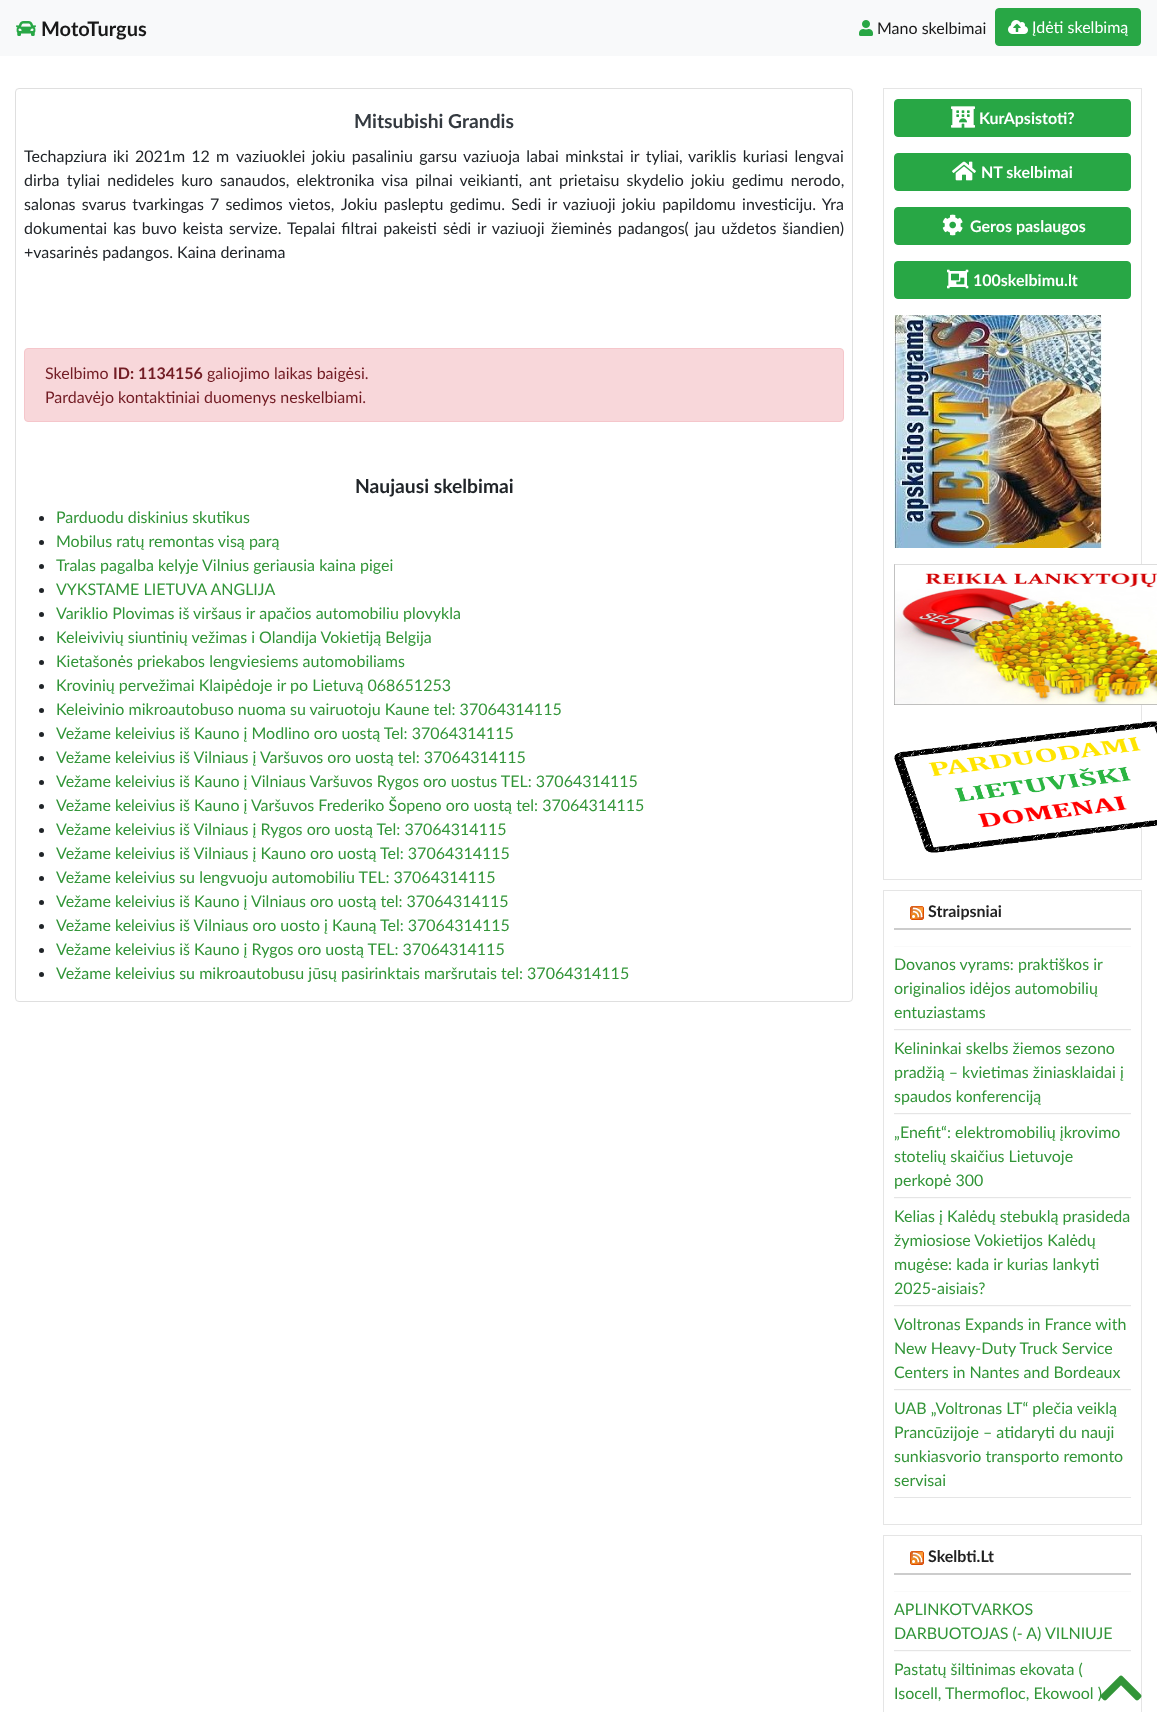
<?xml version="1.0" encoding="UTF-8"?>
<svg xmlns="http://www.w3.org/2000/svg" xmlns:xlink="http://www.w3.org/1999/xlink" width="1157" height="1712">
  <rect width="100%" height="100%" fill="#ffffff" />
  <rect width="1157" height="56" fill="#f8f9fa" />
  <image x="16" y="21" width="20" height="15" xlink:href="image1.png" />
  <image x="859" y="20" width="14" height="16" xlink:href="image2.png" />
  <rect x="995.5" y="8.5" width="145" height="37" rx="3.5" fill="#28a745" stroke="#28a745" />
  <image x="1008" y="20" width="20" height="14" xlink:href="image3.png" />
  <rect x="15.5" y="88.5" width="837" height="913" rx="3.5" fill="none" stroke="#dfdfdf" />
  <rect x="24.5" y="348.5" width="819" height="73" rx="3.5" fill="#f8d7da" stroke="#f5c6cb" />
  <circle cx="41.5" cy="518.5" r="2.5" fill="#212529" />
  <circle cx="41.5" cy="542.5" r="2.5" fill="#212529" />
  <circle cx="41.5" cy="566.5" r="2.5" fill="#212529" />
  <circle cx="41.5" cy="590.5" r="2.5" fill="#212529" />
  <circle cx="41.5" cy="614.5" r="2.5" fill="#212529" />
  <circle cx="41.5" cy="638.5" r="2.5" fill="#212529" />
  <circle cx="41.5" cy="662.5" r="2.5" fill="#212529" />
  <circle cx="41.5" cy="686.5" r="2.5" fill="#212529" />
  <circle cx="41.5" cy="710.5" r="2.5" fill="#212529" />
  <circle cx="41.5" cy="734.5" r="2.5" fill="#212529" />
  <circle cx="41.5" cy="758.5" r="2.5" fill="#212529" />
  <circle cx="41.5" cy="782.5" r="2.5" fill="#212529" />
  <circle cx="41.5" cy="806.5" r="2.5" fill="#212529" />
  <circle cx="41.5" cy="830.5" r="2.5" fill="#212529" />
  <circle cx="41.5" cy="854.5" r="2.5" fill="#212529" />
  <circle cx="41.5" cy="878.5" r="2.5" fill="#212529" />
  <circle cx="41.5" cy="902.5" r="2.5" fill="#212529" />
  <circle cx="41.5" cy="926.5" r="2.5" fill="#212529" />
  <circle cx="41.5" cy="950.5" r="2.5" fill="#212529" />
  <circle cx="41.5" cy="974.5" r="2.5" fill="#212529" />
  <rect x="883.5" y="88.5" width="258" height="791" fill="none" stroke="#e5e5e5" />
  <rect x="894.5" y="99.5" width="236" height="37" rx="3.5" fill="#28a745" stroke="#28a745" />
  <image x="951" y="106" width="24" height="22" xlink:href="image4.png" />
  <rect x="894.5" y="153.5" width="236" height="37" rx="3.5" fill="#28a745" stroke="#28a745" />
  <image x="952" y="161" width="24" height="20" xlink:href="image5.png" />
  <rect x="894.5" y="207.5" width="236" height="37" rx="3.5" fill="#28a745" stroke="#28a745" />
  <image x="942" y="214" width="21" height="22" xlink:href="image6.png" />
  <rect x="894.5" y="261.5" width="236" height="37" rx="3.5" fill="#28a745" stroke="#28a745" />
  <image x="947" y="269" width="22" height="20" xlink:href="image7.png" />
  <image x="894" y="315" width="208" height="233" xlink:href="image8.png" />
  <image x="894" y="564" width="263" height="141" xlink:href="image9.png" />
  <image x="894" y="721" width="263" height="132" xlink:href="image10.png" />
  <rect x="883.5" y="890.5" width="258" height="634" fill="none" stroke="#e5e5e5" />
  <rect x="894" y="928" width="237" height="2" fill="#cccccc" />
  <image x="910" y="906" width="14" height="14" xlink:href="image11.png" />
  <rect x="894" y="946" width="237" height="1" fill="#fafafa" />
  <rect x="894" y="1029" width="237" height="1" fill="#e5e5e5" />
  <rect x="894" y="1030" width="237" height="1" fill="#fafafa" />
  <rect x="894" y="1113" width="237" height="1" fill="#e5e5e5" />
  <rect x="894" y="1114" width="237" height="1" fill="#fafafa" />
  <rect x="894" y="1197" width="237" height="1" fill="#e5e5e5" />
  <rect x="894" y="1198" width="237" height="1" fill="#fafafa" />
  <rect x="894" y="1305" width="237" height="1" fill="#e5e5e5" />
  <rect x="894" y="1306" width="237" height="1" fill="#fafafa" />
  <rect x="894" y="1389" width="237" height="1" fill="#e5e5e5" />
  <rect x="894" y="1390" width="237" height="1" fill="#fafafa" />
  <rect x="894" y="1497" width="237" height="1" fill="#e5e5e5" />
  <rect x="883.5" y="1535.5" width="258" height="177" fill="none" stroke="#e5e5e5" />
  <rect x="894" y="1573" width="237" height="2" fill="#cccccc" />
  <image x="910" y="1551" width="14" height="14" xlink:href="image11.png" />
  <rect x="894" y="1591" width="237" height="1" fill="#fafafa" />
  <rect x="894" y="1650" width="237" height="1" fill="#e5e5e5" />
  <rect x="894" y="1651" width="237" height="1" fill="#fafafa" />
  <text x="41" y="36" style="font-family: Lato; font-size: 20px; font-weight: bold; fill: #191919">MotoTurgus</text>
  <text x="877" y="34" style="font-family: Lato; font-size: 16px; fill: #191919">Mano skelbimai</text>
  <text x="1032" y="33" style="font-family: Lato; font-size: 16px; fill: #ffffff">Įdėti skelbimą</text>
  <text x="354" y="128" style="font-family: Lato; font-size: 19.25px; font-weight: bold; fill: #343a40">Mitsubishi Grandis</text>
  <text x="24" y="162" word-spacing="2" style="font-family: Lato; font-size: 16px; fill: #212529">Techapziura iki 2021m 12 m</text>
  <text x="236" y="162" word-spacing="2.25" style="font-family: Lato; font-size: 16px; fill: #212529">vaziuoklei jokiu pasaliniu garsu vaziuoja labai minkstai ir tyliai,</text>
  <text x="688" y="162" word-spacing="2.25" style="font-family: Lato; font-size: 16px; fill: #212529">variklis kuriasi lengvai</text>
  <text x="24" y="186" word-spacing="3.1" style="font-family: Lato; font-size: 16px; fill: #212529">dirba tyliai nedideles kuro sanaudos, elektronika visa pilnai veikianti, ant prietaisu skydelio jokiu gedimu nerodo,</text>
  <text x="24" y="210" word-spacing="2" style="font-family: Lato; font-size: 16px; fill: #212529">salonas svarus tvarkingas 7 sedimos vietos,</text>
  <text x="341" y="210" word-spacing="2.25" style="font-family: Lato; font-size: 16px; fill: #212529">Jokiu pasleptu gedimu. Sedi ir vaziuoji jokiu papildomu investiciju. Yra</text>
  <text x="24" y="234" word-spacing="1.75" style="font-family: Lato; font-size: 16px; fill: #212529">dokumentai kas buvo keista servize. Tepalai filtrai pakeisti</text>
  <text x="443" y="234" word-spacing="1.75" style="font-family: Lato; font-size: 16px; fill: #212529">sėdi ir vaziuoji</text>
  <text x="551" y="234" word-spacing="1.75" style="font-family: Lato; font-size: 16px; fill: #212529">žieminės padangos( jau uždetos šiandien)</text>
  <text x="24" y="258" style="font-family: Lato; font-size: 16px; fill: #212529">+vasarinės padangos. Kaina derinama</text>
  <text x="45" y="379" style="font-family: Lato; font-size: 16px; fill: #721c24">Skelbimo</text>
  <text x="113" y="379" style="font-family: Lato; font-size: 16px; font-weight: bold; fill: #721c24">ID: 1134156</text>
  <text x="207" y="379" style="font-family: Lato; font-size: 16px; fill: #721c24">galiojimo laikas baigėsi.</text>
  <text x="45" y="403" style="font-family: Lato; font-size: 16px; fill: #721c24">Pardavėjo kontaktiniai duomenys neskelbiami.</text>
  <text x="355" y="493" style="font-family: Lato; font-size: 19.25px; font-weight: bold; fill: #212529">Naujausi skelbimai</text>
  <text x="56" y="523" style="font-family: Lato; font-size: 16px; fill: #329538">Parduodu diskinius skutikus</text>
  <text x="56" y="547" style="font-family: Lato; font-size: 16px; fill: #329538">Mobilus ratų remontas visą parą</text>
  <text x="56" y="571" style="font-family: Lato; font-size: 16px; fill: #329538">Tralas pagalba kelyje Vilnius geriausia kaina pigei</text>
  <text x="56" y="595" style="font-family: Lato; font-size: 16px; fill: #329538">VYKSTAME LIETUVA ANGLIJA</text>
  <text x="56" y="619" style="font-family: Lato; font-size: 16px; fill: #329538">Variklio Plovimas iš viršaus ir apačios automobiliu plovykla</text>
  <text x="56" y="643" style="font-family: Lato; font-size: 16px; fill: #329538">Keleivivių siuntinių vežimas i Olandija Vokietiją Belgija</text>
  <text x="56" y="667" style="font-family: Lato; font-size: 16px; fill: #329538">Kietašonės priekabos lengviesiems automobiliams</text>
  <text x="56" y="691" style="font-family: Lato; font-size: 16px; fill: #329538">Krovinių pervežimai Klaipėdoje ir po Lietuvą 068651253</text>
  <text x="56" y="715" style="font-family: Lato; font-size: 16px; fill: #329538">Keleivinio mikroautobuso nuoma su vairuotoju Kaune tel: 37064314115</text>
  <text x="56" y="739" style="font-family: Lato; font-size: 16px; fill: #329538">Vežame keleivius iš Kauno į Modlino oro uostą Tel: 37064314115</text>
  <text x="56" y="763" style="font-family: Lato; font-size: 16px; fill: #329538">Vežame keleivius iš Vilniaus į Varšuvos oro uostą tel: 37064314115</text>
  <text x="56" y="787" style="font-family: Lato; font-size: 16px; fill: #329538">Vežame keleivius iš Kauno į Vilniaus Varšuvos Rygos oro uostus TEL: 37064314115</text>
  <text x="56" y="811" style="font-family: Lato; font-size: 16px; fill: #329538">Vežame keleivius iš Kauno į Varšuvos Frederiko Šopeno oro uostą tel: 37064314115</text>
  <text x="56" y="835" style="font-family: Lato; font-size: 16px; fill: #329538">Vežame keleivius iš Vilniaus į Rygos oro uostą Tel: 37064314115</text>
  <text x="56" y="859" style="font-family: Lato; font-size: 16px; fill: #329538">Vežame keleivius iš Vilniaus į Kauno oro uostą Tel: 37064314115</text>
  <text x="56" y="883" style="font-family: Lato; font-size: 16px; fill: #329538">Vežame keleivius su lengvuoju automobiliu TEL: 37064314115</text>
  <text x="56" y="907" style="font-family: Lato; font-size: 16px; fill: #329538">Vežame keleivius iš Kauno į Vilniaus oro uostą tel: 37064314115</text>
  <text x="56" y="931" style="font-family: Lato; font-size: 16px; fill: #329538">Vežame keleivius iš Vilniaus oro uosto į Kauną Tel: 37064314115</text>
  <text x="56" y="955" style="font-family: Lato; font-size: 16px; fill: #329538">Vežame keleivius iš Kauno į Rygos oro uostą TEL: 37064314115</text>
  <text x="56" y="979" style="font-family: Lato; font-size: 16px; fill: #329538">Vežame keleivius su mikroautobusu jūsų pasirinktais maršrutais tel: 37064314115</text>
  <text x="979" y="124" style="font-family: Lato; font-size: 16px; font-weight: bold; fill: #ffffff">KurApsistoti?</text>
  <text x="981" y="178" style="font-family: Lato; font-size: 16px; font-weight: bold; fill: #ffffff">NT skelbimai</text>
  <text x="970" y="232" style="font-family: Lato; font-size: 16px; font-weight: bold; fill: #ffffff">Geros paslaugos</text>
  <text x="973" y="286" style="font-family: Lato; font-size: 16px; font-weight: bold; fill: #ffffff">100skelbimu.lt</text>
  <text x="928" y="917" style="font-family: Lato; font-size: 16px; font-weight: bold; fill: #222222">Straipsniai</text>
  <text x="894" y="970" style="font-family: Lato; font-size: 16px; fill: #329538">Dovanos vyrams: praktiškos ir</text>
  <text x="894" y="994" style="font-family: Lato; font-size: 16px; fill: #329538">originalios idėjos automobilių</text>
  <text x="894" y="1018" style="font-family: Lato; font-size: 16px; fill: #329538">entuziastams</text>
  <text x="894" y="1054" style="font-family: Lato; font-size: 16px; fill: #329538">Kelininkai skelbs žiemos sezono</text>
  <text x="894" y="1078" style="font-family: Lato; font-size: 16px; fill: #329538">pradžią – kvietimas žiniasklaidai į</text>
  <text x="894" y="1102" style="font-family: Lato; font-size: 16px; fill: #329538">spaudos konferenciją</text>
  <text x="894" y="1138" style="font-family: Lato; font-size: 16px; fill: #329538">„Enefit“: elektromobilių įkrovimo</text>
  <text x="894" y="1162" style="font-family: Lato; font-size: 16px; fill: #329538">stotelių skaičius Lietuvoje</text>
  <text x="894" y="1186" style="font-family: Lato; font-size: 16px; fill: #329538">perkopė 300</text>
  <text x="894" y="1222" style="font-family: Lato; font-size: 16px; fill: #329538">Kelias į Kalėdų stebuklą prasideda</text>
  <text x="894" y="1246" style="font-family: Lato; font-size: 16px; fill: #329538">žymiosiose Vokietijos Kalėdų</text>
  <text x="894" y="1270" style="font-family: Lato; font-size: 16px; fill: #329538">mugėse: kada ir kurias lankyti</text>
  <text x="894" y="1294" style="font-family: Lato; font-size: 16px; fill: #329538">2025-aisiais?</text>
  <text x="894" y="1330" style="font-family: Lato; font-size: 16px; fill: #329538">Voltronas Expands in France with</text>
  <text x="894" y="1354" style="font-family: Lato; font-size: 16px; fill: #329538">New Heavy-Duty Truck Service</text>
  <text x="894" y="1378" style="font-family: Lato; font-size: 16px; fill: #329538">Centers in Nantes and Bordeaux</text>
  <text x="894" y="1414" style="font-family: Lato; font-size: 16px; fill: #329538">UAB „Voltronas LT“ plečia veiklą</text>
  <text x="894" y="1438" style="font-family: Lato; font-size: 16px; fill: #329538">Prancūzijoje – atidaryti du nauji</text>
  <text x="894" y="1462" style="font-family: Lato; font-size: 16px; fill: #329538">sunkiasvorio transporto remonto</text>
  <text x="894" y="1486" style="font-family: Lato; font-size: 16px; fill: #329538">servisai</text>
  <text x="928" y="1562" style="font-family: Lato; font-size: 16px; font-weight: bold; fill: #222222">Skelbti.Lt</text>
  <text x="894" y="1615" style="font-family: Lato; font-size: 16px; fill: #329538">APLINKOTVARKOS</text>
  <text x="894" y="1639" style="font-family: Lato; font-size: 16px; fill: #329538">DARBUOTOJAS (- A) VILNIUJE</text>
  <text x="894" y="1675" style="font-family: Lato; font-size: 16px; fill: #329538">Pastatų šiltinimas ekovata (</text>
  <text x="894" y="1699" style="font-family: Lato; font-size: 16px; fill: #329538">Isocell, Thermofloc, Ekowool )</text>
  <image x="1100" y="1675" width="42" height="26" xlink:href="image12.png" />
</svg>
